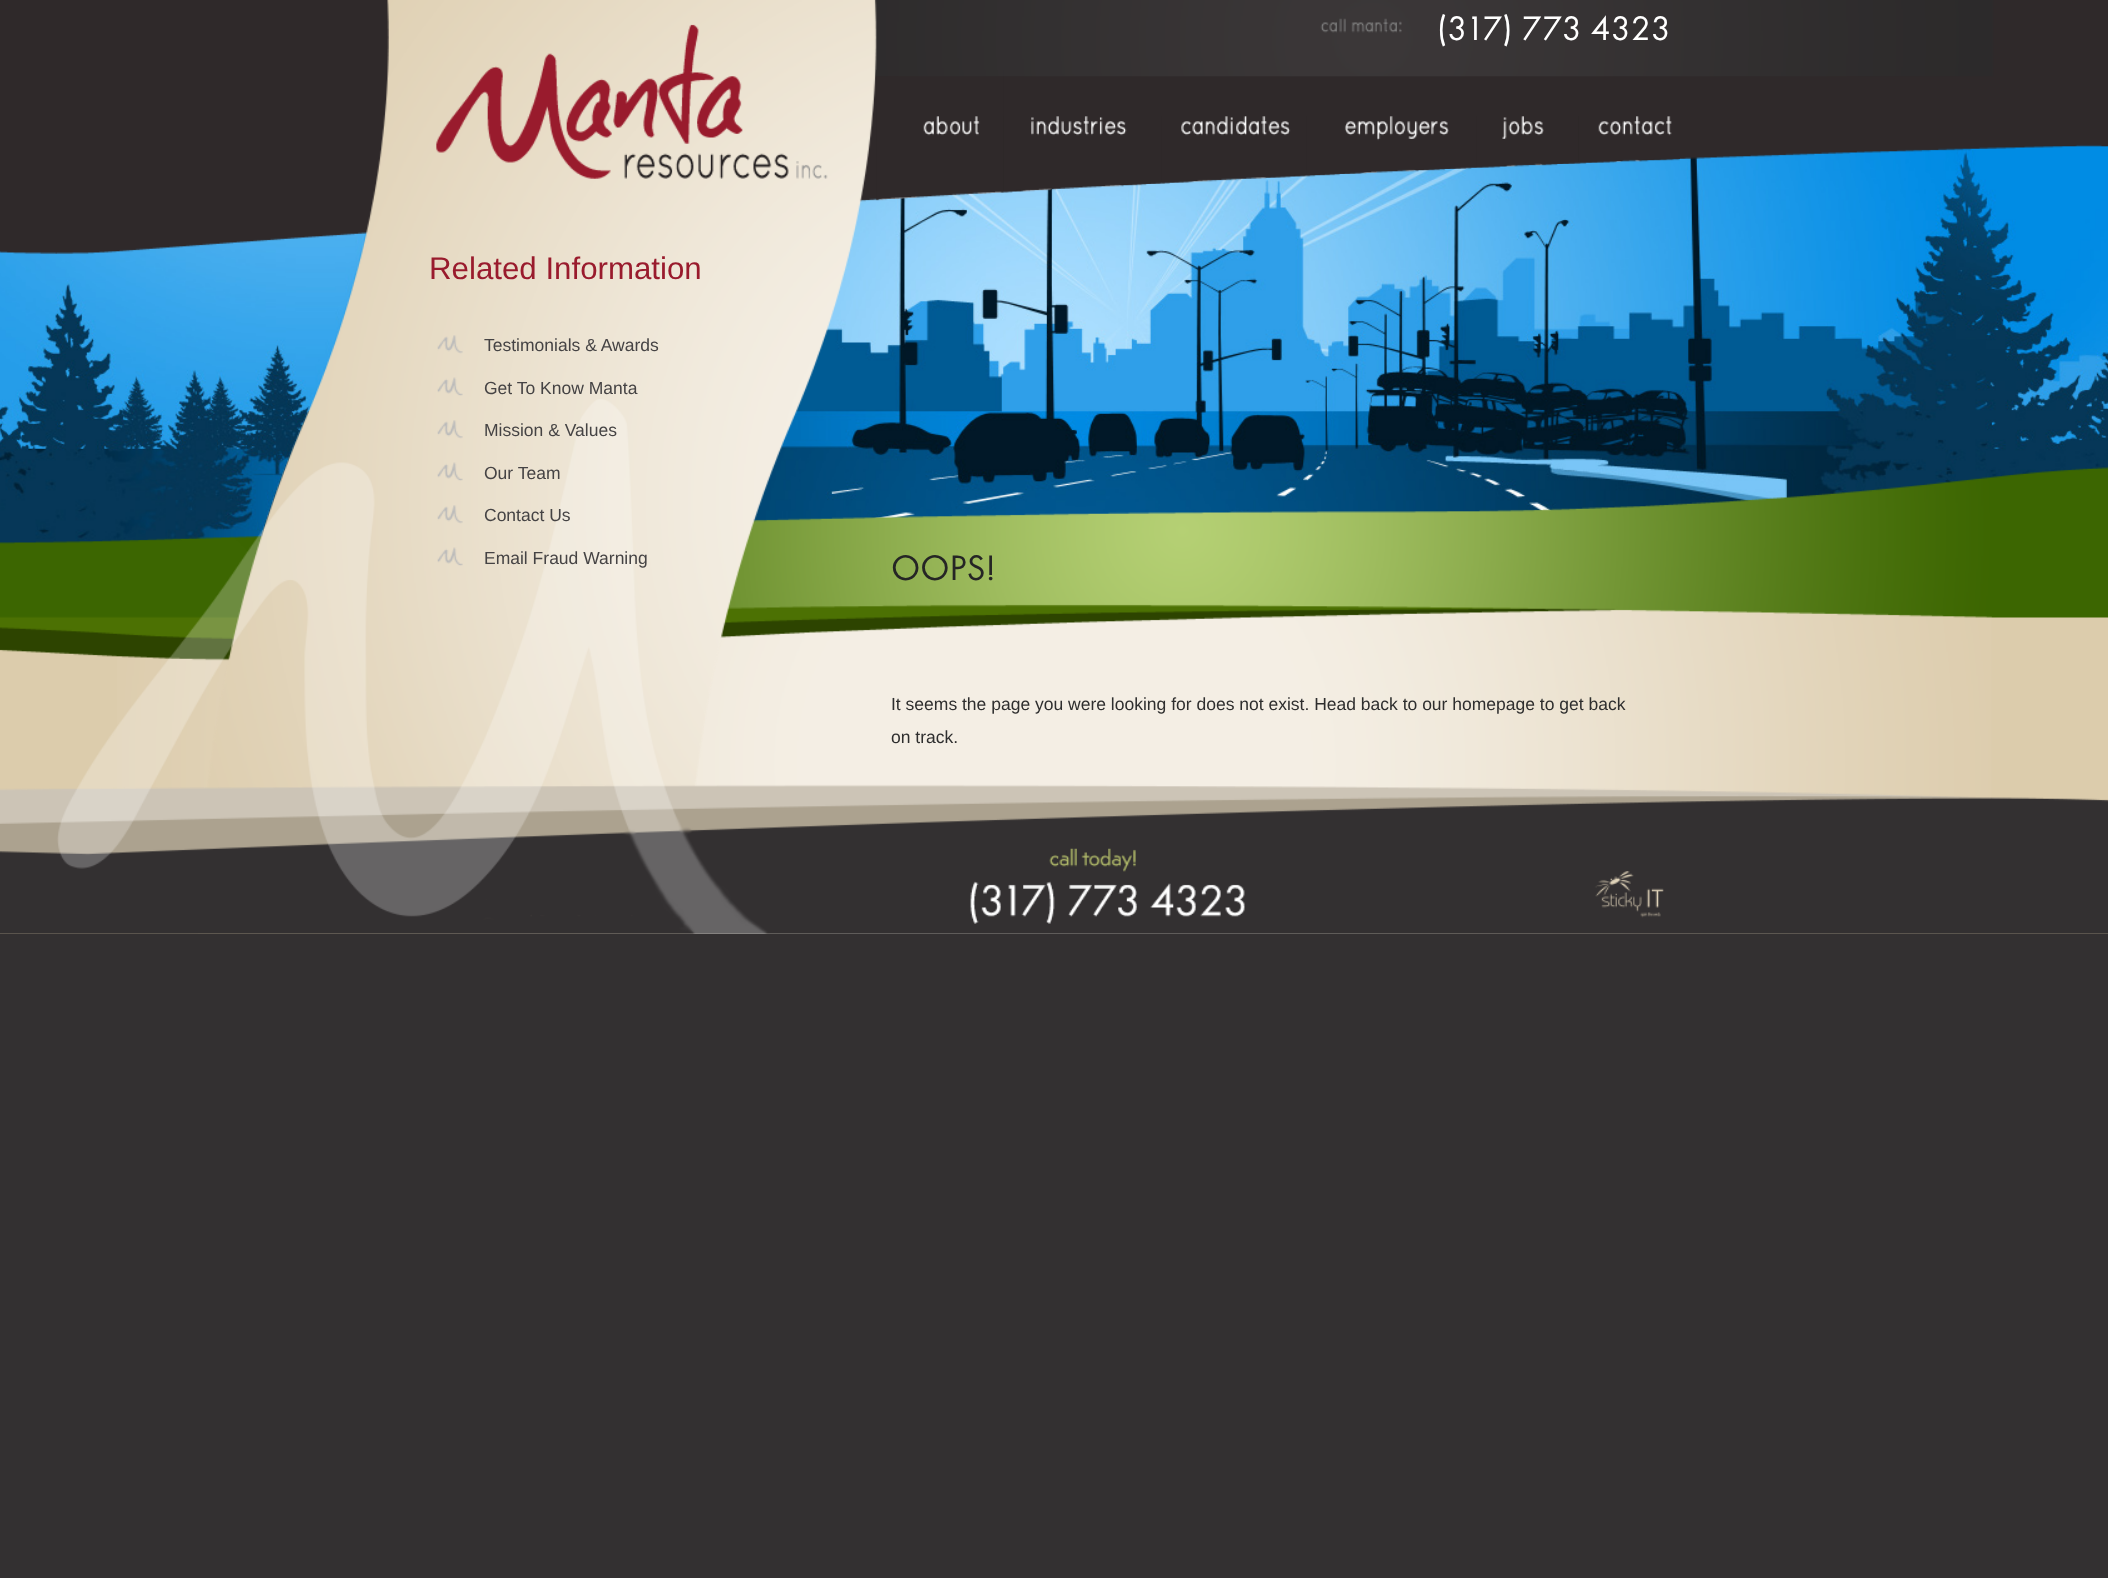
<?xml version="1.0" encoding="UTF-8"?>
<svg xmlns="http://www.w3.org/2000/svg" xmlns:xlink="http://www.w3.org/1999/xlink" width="2108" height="1578">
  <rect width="100%" height="100%" fill="#333031" />
  <image x="0" y="933" width="2108" height="1" xlink:href="image1.png" />
  <image x="198" y="933" width="488" height="1" xlink:href="image2.png" />
  <image x="0" y="144" width="2108" height="400" xlink:href="image3.png" />
  <image x="0" y="467" width="2108" height="467" xlink:href="image4.png" />
  <image x="0" y="0" width="2108" height="254" xlink:href="image5.png" />
  <image x="198" y="0" width="679" height="934" xlink:href="image6.png" />
  <image x="0" y="399" width="2108" height="535" xlink:href="image7.png" />
  <image x="436" y="24" width="392" height="155" xlink:href="image8.png" />
  <image x="876" y="70" width="128" height="131" xlink:href="image9.png" />
  <image x="1003" y="116" width="159" height="77" xlink:href="image10.png" />
  <image x="1161" y="116" width="146" height="68" xlink:href="image11.png" />
  <image x="1306" y="116" width="171" height="61" xlink:href="image12.png" />
  <image x="1476" y="116" width="103" height="52" xlink:href="image13.png" />
  <image x="1578" y="116" width="102" height="48" xlink:href="image14.png" />
  <image x="437" y="335" width="26" height="19" xlink:href="image15.png" />
  <image x="437" y="377" width="26" height="19" xlink:href="image16.png" />
  <image x="437" y="420" width="26" height="19" xlink:href="image17.png" />
  <image x="437" y="462" width="26" height="19" xlink:href="image18.png" />
  <image x="437" y="505" width="26" height="19" xlink:href="image19.png" />
  <image x="437" y="547" width="26" height="19" xlink:href="image20.png" />
  <text x="1437" y="40" style="font-family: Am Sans; font-size: 28.75px; fill: #ffffff">(317) 773 4323</text>
  <text x="429" y="279" style="font-family: Liberation Sans; font-size: 31.25px; fill: #991b2d">Related Information</text>
  <text x="484" y="351" style="font-family: Liberation Sans; font-size: 17.5px; fill: #454344">Testimonials &amp; Awards</text>
  <text x="484" y="394" style="font-family: Liberation Sans; font-size: 17.5px; fill: #454344">Get To Know Manta</text>
  <text x="484" y="436" style="font-family: Liberation Sans; font-size: 17.5px; fill: #454344">Mission &amp; Values</text>
  <text x="484" y="479" style="font-family: Liberation Sans; font-size: 17.5px; fill: #454344">Our Team</text>
  <text x="484" y="521" style="font-family: Liberation Sans; font-size: 17.5px; fill: #454344">Contact Us</text>
  <text x="484" y="564" style="font-family: Liberation Sans; font-size: 17.5px; fill: #454344">Email Fraud Warning</text>
  <text x="891" y="580" style="font-family: Am Sans; font-size: 30px; fill: #252525">OOPS!</text>
  <text x="891" y="710" style="font-family: Liberation Sans; font-size: 17.5px; fill: #2e2e2e">It seems the page you were looking for does not exist. Head back to our homepage to get back</text>
  <text x="891" y="743" style="font-family: Liberation Sans; font-size: 17.5px; fill: #2e2e2e">on track.</text>
</svg>
